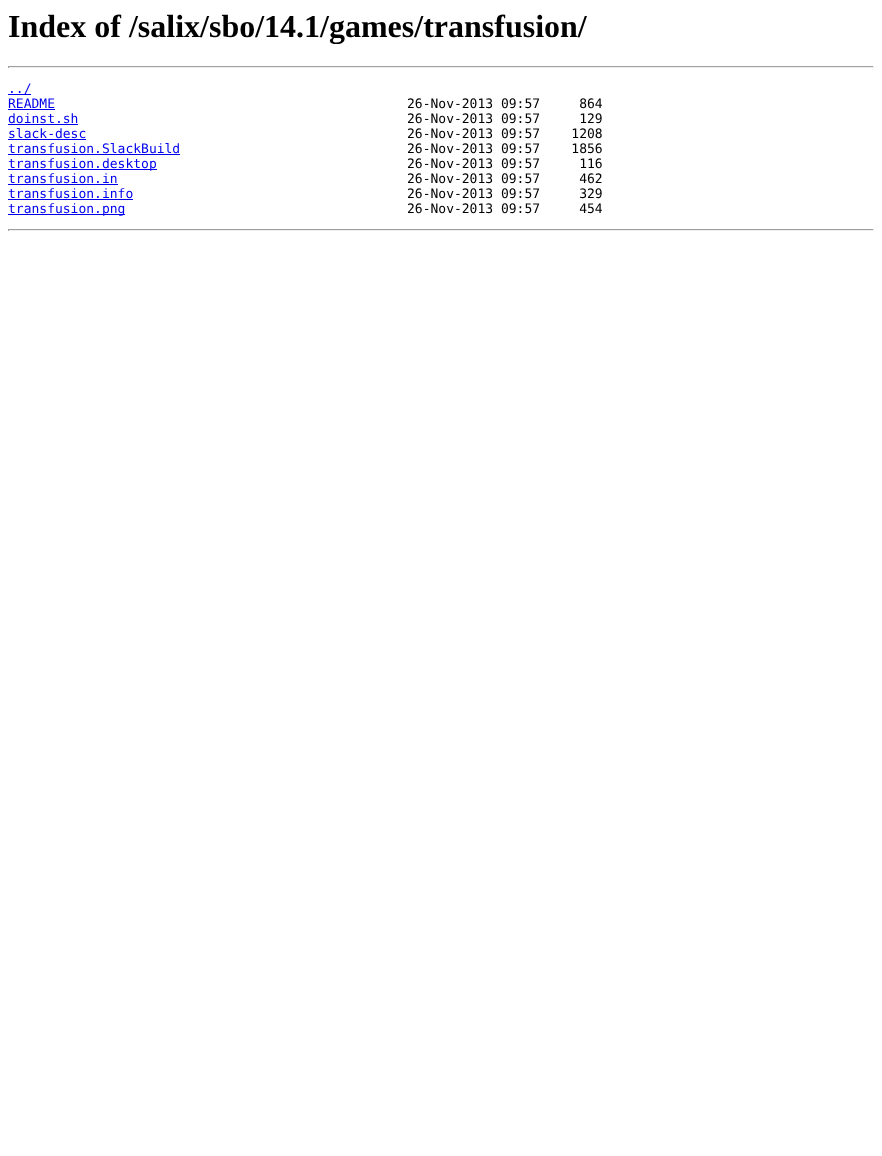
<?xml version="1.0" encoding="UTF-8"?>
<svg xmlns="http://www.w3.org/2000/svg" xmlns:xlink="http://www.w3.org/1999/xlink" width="882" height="1156">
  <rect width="100%" height="100%" fill="#ffffff" />
  <rect x="8" y="66" width="866" height="1" fill="#9f9f9f" />
  <rect x="873" y="66" width="1" height="2" fill="#eeeeee" />
  <rect x="8" y="67" width="866" height="1" fill="#eeeeee" />
  <rect x="8" y="66" width="1" height="2" fill="#9f9f9f" />
  <rect x="8" y="94" width="23" height="1" fill="#0000ee" />
  <rect x="8" y="109" width="47" height="1" fill="#0000ee" />
  <rect x="8" y="124" width="70" height="1" fill="#0000ee" />
  <rect x="8" y="139" width="78" height="1" fill="#0000ee" />
  <rect x="8" y="154" width="172" height="1" fill="#0000ee" />
  <rect x="8" y="169" width="149" height="1" fill="#0000ee" />
  <rect x="8" y="184" width="110" height="1" fill="#0000ee" />
  <rect x="8" y="199" width="125" height="1" fill="#0000ee" />
  <rect x="8" y="214" width="117" height="1" fill="#0000ee" />
  <rect x="8" y="229" width="866" height="1" fill="#9f9f9f" />
  <rect x="873" y="229" width="1" height="2" fill="#eeeeee" />
  <rect x="8" y="230" width="866" height="1" fill="#eeeeee" />
  <rect x="8" y="229" width="1" height="2" fill="#9f9f9f" />
  <text x="8" y="37" style="font-family: Liberation Serif; font-size: 32px; font-weight: bold; fill: #000000">Index of /salix/sbo/14.1/games/transfusion/</text>
  <text x="8" y="93" style="font-family: DejaVu Sans Mono; font-size: 13px; fill: #0000ee">../</text>
  <text x="8" y="108" style="font-family: DejaVu Sans Mono; font-size: 13px; fill: #0000ee">README</text>
  <text x="407" y="108" style="font-family: DejaVu Sans Mono; font-size: 13px; fill: #000000" xml:space="preserve">26-Nov-2013 09:57     864</text>
  <text x="8" y="123" style="font-family: DejaVu Sans Mono; font-size: 13px; fill: #0000ee">doinst.sh</text>
  <text x="407" y="123" style="font-family: DejaVu Sans Mono; font-size: 13px; fill: #000000" xml:space="preserve">26-Nov-2013 09:57     129</text>
  <text x="8" y="138" style="font-family: DejaVu Sans Mono; font-size: 13px; fill: #0000ee">slack-desc</text>
  <text x="407" y="138" style="font-family: DejaVu Sans Mono; font-size: 13px; fill: #000000" xml:space="preserve">26-Nov-2013 09:57    1208</text>
  <text x="8" y="153" style="font-family: DejaVu Sans Mono; font-size: 13px; fill: #0000ee">transfusion.SlackBuild</text>
  <text x="407" y="153" style="font-family: DejaVu Sans Mono; font-size: 13px; fill: #000000" xml:space="preserve">26-Nov-2013 09:57    1856</text>
  <text x="8" y="168" style="font-family: DejaVu Sans Mono; font-size: 13px; fill: #0000ee">transfusion.desktop</text>
  <text x="407" y="168" style="font-family: DejaVu Sans Mono; font-size: 13px; fill: #000000" xml:space="preserve">26-Nov-2013 09:57     116</text>
  <text x="8" y="183" style="font-family: DejaVu Sans Mono; font-size: 13px; fill: #0000ee">transfusion.in</text>
  <text x="407" y="183" style="font-family: DejaVu Sans Mono; font-size: 13px; fill: #000000" xml:space="preserve">26-Nov-2013 09:57     462</text>
  <text x="8" y="198" style="font-family: DejaVu Sans Mono; font-size: 13px; fill: #0000ee">transfusion.info</text>
  <text x="407" y="198" style="font-family: DejaVu Sans Mono; font-size: 13px; fill: #000000" xml:space="preserve">26-Nov-2013 09:57     329</text>
  <text x="8" y="213" style="font-family: DejaVu Sans Mono; font-size: 13px; fill: #0000ee">transfusion.png</text>
  <text x="407" y="213" style="font-family: DejaVu Sans Mono; font-size: 13px; fill: #000000" xml:space="preserve">26-Nov-2013 09:57     454</text>
</svg>
